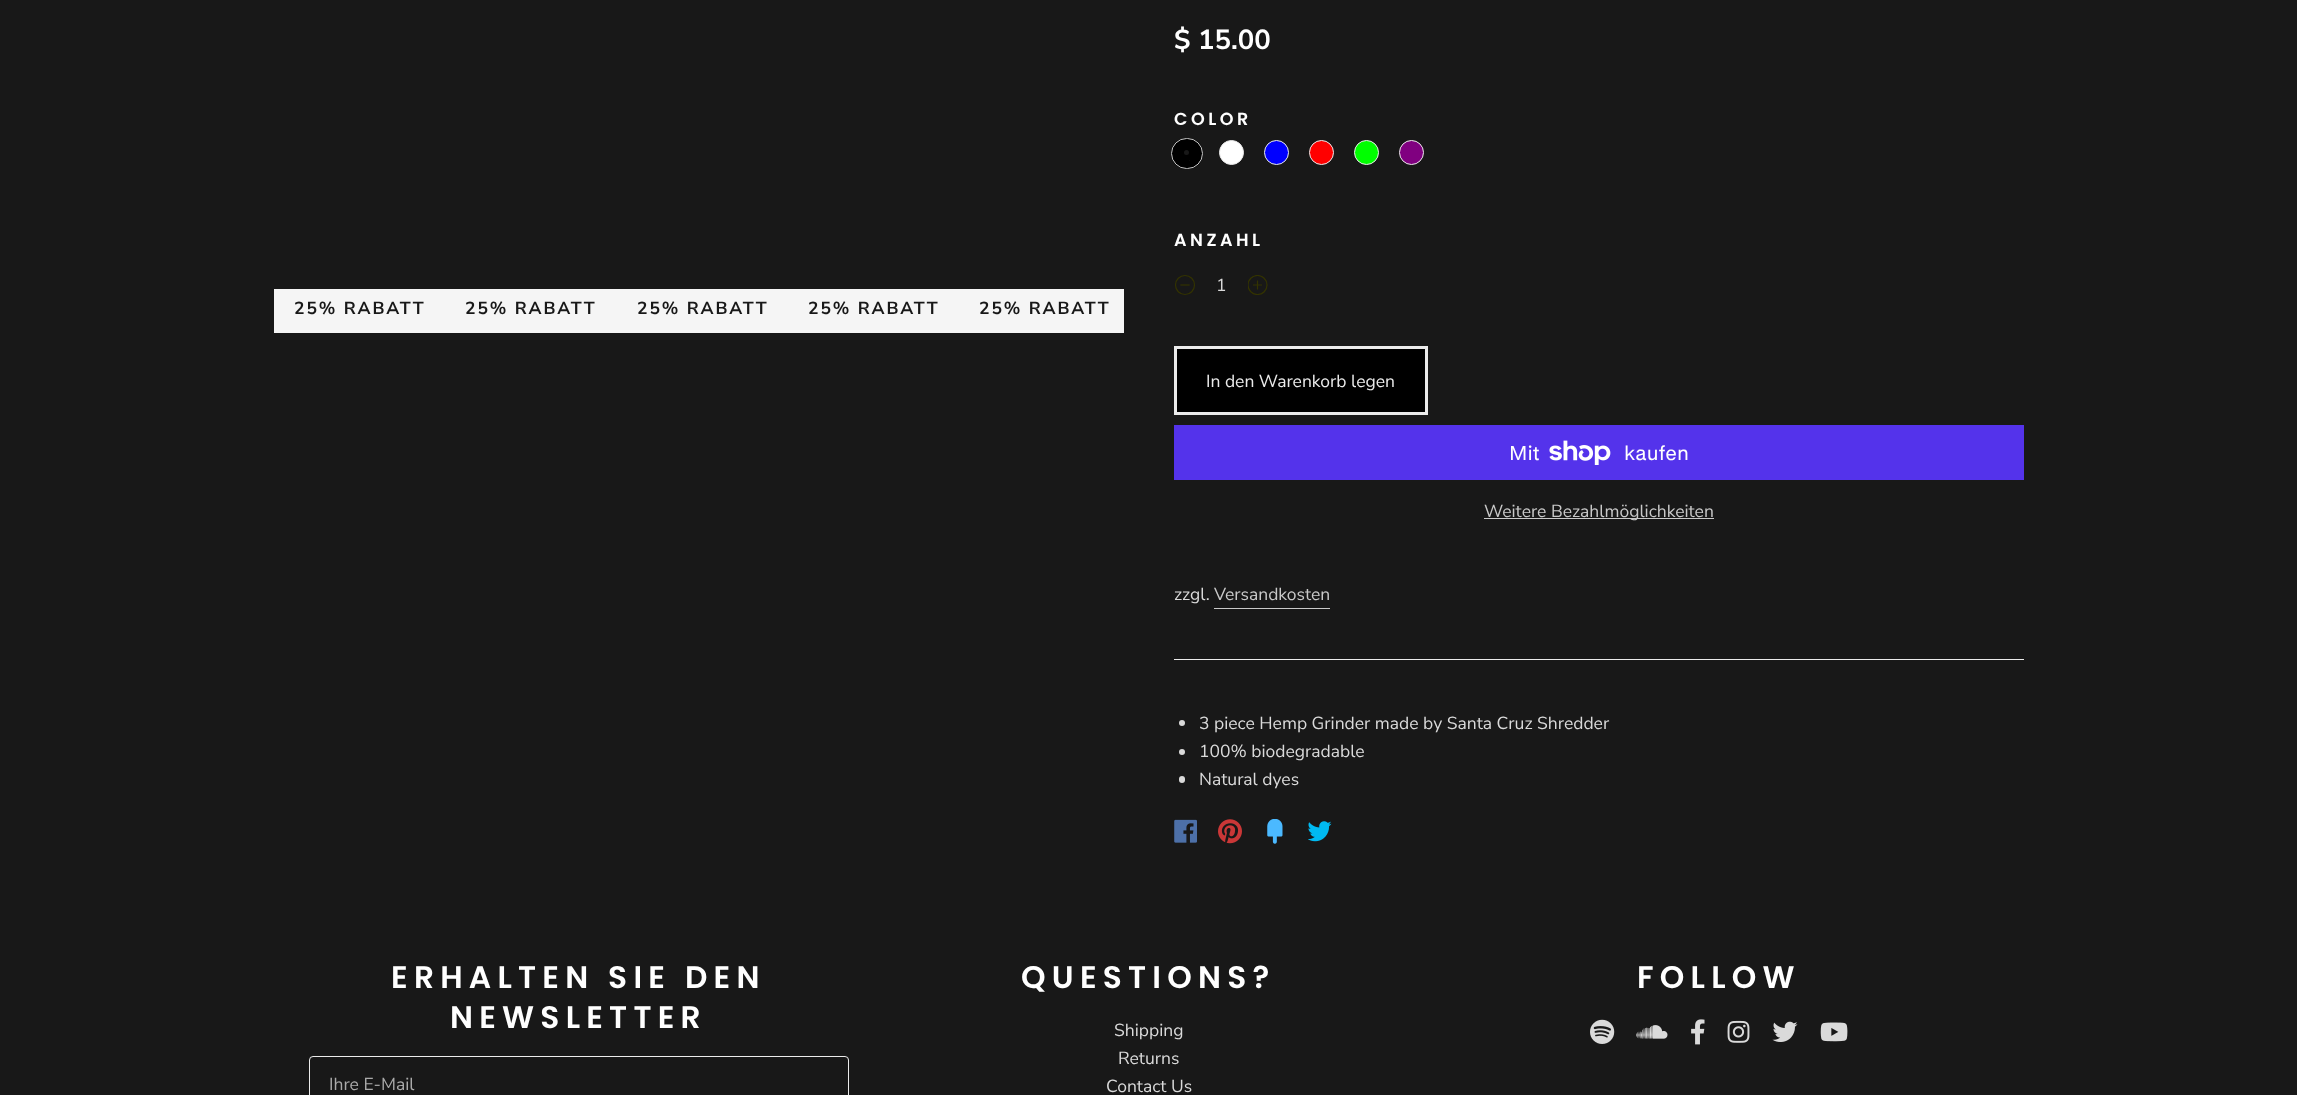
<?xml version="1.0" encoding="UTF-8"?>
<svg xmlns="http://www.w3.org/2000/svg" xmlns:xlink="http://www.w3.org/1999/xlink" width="2297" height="1095">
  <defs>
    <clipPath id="clip1"><rect x="1248" y="275" width="20" height="20" /></clipPath>
  </defs>
  <rect width="100%" height="100%" fill="#181818" />
  <rect x="274" y="289" width="850" height="44" fill="#f5f5f5" />
  <rect x="1174" y="659" width="850" height="1" fill="#ebebeb" />
  <rect x="1171" y="138" width="32" height="31" rx="15.5" fill="#000000" />
  <rect x="1189" y="160" width="1" height="1" fill="#070707" />
  <rect x="1171.5" y="138.5" width="31" height="30" rx="15" fill="none" stroke="#c9c9c9" />
  <circle cx="1186.5" cy="152.5" r="2.5" fill="#181818" />
  <circle cx="1231.5" cy="152.5" r="12" fill="#ffffff" stroke="#ebebeb" />
  <circle cx="1276.5" cy="152.5" r="12" fill="#0000ff" stroke="#ebebeb" />
  <circle cx="1321.5" cy="152.5" r="12" fill="#ff0000" stroke="#ebebeb" />
  <circle cx="1366.5" cy="152.5" r="12" fill="#00ff00" stroke="#ebebeb" />
  <circle cx="1411.5" cy="152.5" r="12" fill="#800080" stroke="#ebebeb" />
  <circle cx="1185" cy="285" r="9.5" fill="none" stroke="#333300" stroke-width="1.2" />
  <path d="M 1181 285 h 8" fill="none" stroke="#333300" stroke-width="1.2" stroke-linecap="square" />
  <g clip-path="url(#clip1)">
    <circle cx="1257.5" cy="285" r="9.5" fill="none" stroke="#333300" stroke-width="1.2" />
  </g>
  <path d="M 1253.5 285 h 8 m -4 -4 v 8" fill="none" stroke="#333300" stroke-width="1.2" stroke-linecap="square" />
  <rect x="1175.5" y="347.5" width="251" height="66" fill="#000000" stroke="#ebebeb" stroke-width="3" />
  <rect x="1174" y="425" width="850" height="55" fill="#5433eb" />
  <image x="1549" y="440" width="62" height="25" xlink:href="image1.png" />
  <rect x="1484" y="518" width="230" height="1" fill="#c9c9c9" />
  <rect x="1214" y="608" width="116" height="1" fill="#c9c9c9" />
  <circle cx="1182" cy="723" r="3" fill="#dadada" />
  <circle cx="1182" cy="752" r="3" fill="#dadada" />
  <rect x="1179" y="776" width="6" height="7" rx="3" fill="#dadada" />
  <image x="1174" y="819" width="23" height="24" xlink:href="image2.png" />
  <image x="1218" y="819" width="24" height="25" xlink:href="image3.png" />
  <image x="1267" y="819" width="16" height="25" xlink:href="image4.png" />
  <image x="1308" y="821" width="24" height="21" xlink:href="image5.png" />
  <rect x="309.5" y="1056.5" width="539" height="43" rx="3.5" fill="none" stroke="#ebebeb" />
  <image x="1590" y="1019" width="25" height="25" xlink:href="image6.png" />
  <image x="1636" y="1025" width="32" height="14" xlink:href="image7.png" />
  <image x="1691" y="1019" width="14" height="26" xlink:href="image8.png" />
  <image x="1727" y="1020" width="23" height="23" xlink:href="image9.png" />
  <image x="1772" y="1021" width="26" height="21" xlink:href="image10.png" />
  <image x="1820" y="1022" width="28" height="20" xlink:href="image11.png" />
  <text x="294" y="314" style="font-family: Nunito Sans; font-size: 17.5px; font-weight: bold; letter-spacing: 1.9px; fill: #181818">25% RABATT</text>
  <text x="465" y="314" style="font-family: Nunito Sans; font-size: 17.5px; font-weight: bold; letter-spacing: 1.9px; fill: #181818">25% RABATT</text>
  <text x="637" y="314" style="font-family: Nunito Sans; font-size: 17.5px; font-weight: bold; letter-spacing: 1.9px; fill: #181818">25% RABATT</text>
  <text x="808" y="314" style="font-family: Nunito Sans; font-size: 17.5px; font-weight: bold; letter-spacing: 1.9px; fill: #181818">25% RABATT</text>
  <text x="979" y="314" style="font-family: Nunito Sans; font-size: 17.5px; font-weight: bold; letter-spacing: 1.9px; fill: #181818">25% RABATT</text>
  <text x="1174" y="49" style="font-family: Nunito Sans; font-size: 27.5px; font-weight: bold; fill: #ffffff">$ 15.00</text>
  <text x="1174" y="125" style="font-family: Poppins; font-size: 17.5px; font-weight: 600; letter-spacing: 3.5px; fill: #ffffff">COLOR</text>
  <text x="1174" y="246" style="font-family: Poppins; font-size: 17.5px; font-weight: 600; letter-spacing: 3.5px; fill: #ffffff">ANZAHL</text>
  <text x="1216" y="291" style="font-family: Nunito Sans; font-size: 17.5px; fill: #dadada">1</text>
  <text x="1206" y="387" style="font-family: Nunito Sans; font-size: 17.5px; fill: #ebebeb">In den Warenkorb legen</text>
  <text x="1509" y="460" style="font-family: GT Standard; font-size: 20px; fill: #ffffff">Mit</text>
  <text x="1624" y="460" style="font-family: GT Standard; font-size: 20px; fill: #ffffff">kaufen</text>
  <text x="1484" y="517" style="font-family: Nunito Sans; font-size: 17.5px; fill: #c9c9c9">Weitere Bezahlmöglichkeiten</text>
  <text x="1174" y="600" style="font-family: Nunito Sans; font-size: 17.5px; fill: #dadada">zzgl.</text>
  <text x="1214" y="600" style="font-family: Nunito Sans; font-size: 17.5px; fill: #c9c9c9">Versandkosten</text>
  <text x="1199" y="729" style="font-family: Nunito Sans; font-size: 17.5px; fill: #dadada">3 piece Hemp Grinder made by Santa Cruz Shredder</text>
  <text x="1199" y="757" style="font-family: Nunito Sans; font-size: 17.5px; fill: #dadada">100% biodegradable</text>
  <text x="1199" y="785" style="font-family: Nunito Sans; font-size: 17.5px; fill: #dadada">Natural dyes</text>
  <text x="391" y="988" style="font-family: Poppins; font-size: 31.25px; font-weight: 600; letter-spacing: 6.25px; fill: #ffffff">ERHALTEN SIE DEN</text>
  <text x="450" y="1028" style="font-family: Poppins; font-size: 31.25px; font-weight: 600; letter-spacing: 6.25px; fill: #ffffff">NEWSLETTER</text>
  <text x="329" y="1090" style="font-family: Nunito Sans; font-size: 17.5px; fill: #aaaaaa">Ihre E-Mail</text>
  <text x="1021" y="988" style="font-family: Poppins; font-size: 31.25px; font-weight: 600; letter-spacing: 6.25px; fill: #ffffff">QUESTIONS?</text>
  <text x="1114" y="1036" style="font-family: Nunito Sans; font-size: 17.5px; fill: #dadada">Shipping</text>
  <text x="1118" y="1064" style="font-family: Nunito Sans; font-size: 17.5px; fill: #dadada">Returns</text>
  <text x="1106" y="1092" style="font-family: Nunito Sans; font-size: 17.5px; fill: #dadada">Contact Us</text>
  <text x="1637" y="988" style="font-family: Poppins; font-size: 31.25px; font-weight: 600; letter-spacing: 6.25px; fill: #ffffff">FOLLOW</text>
</svg>
